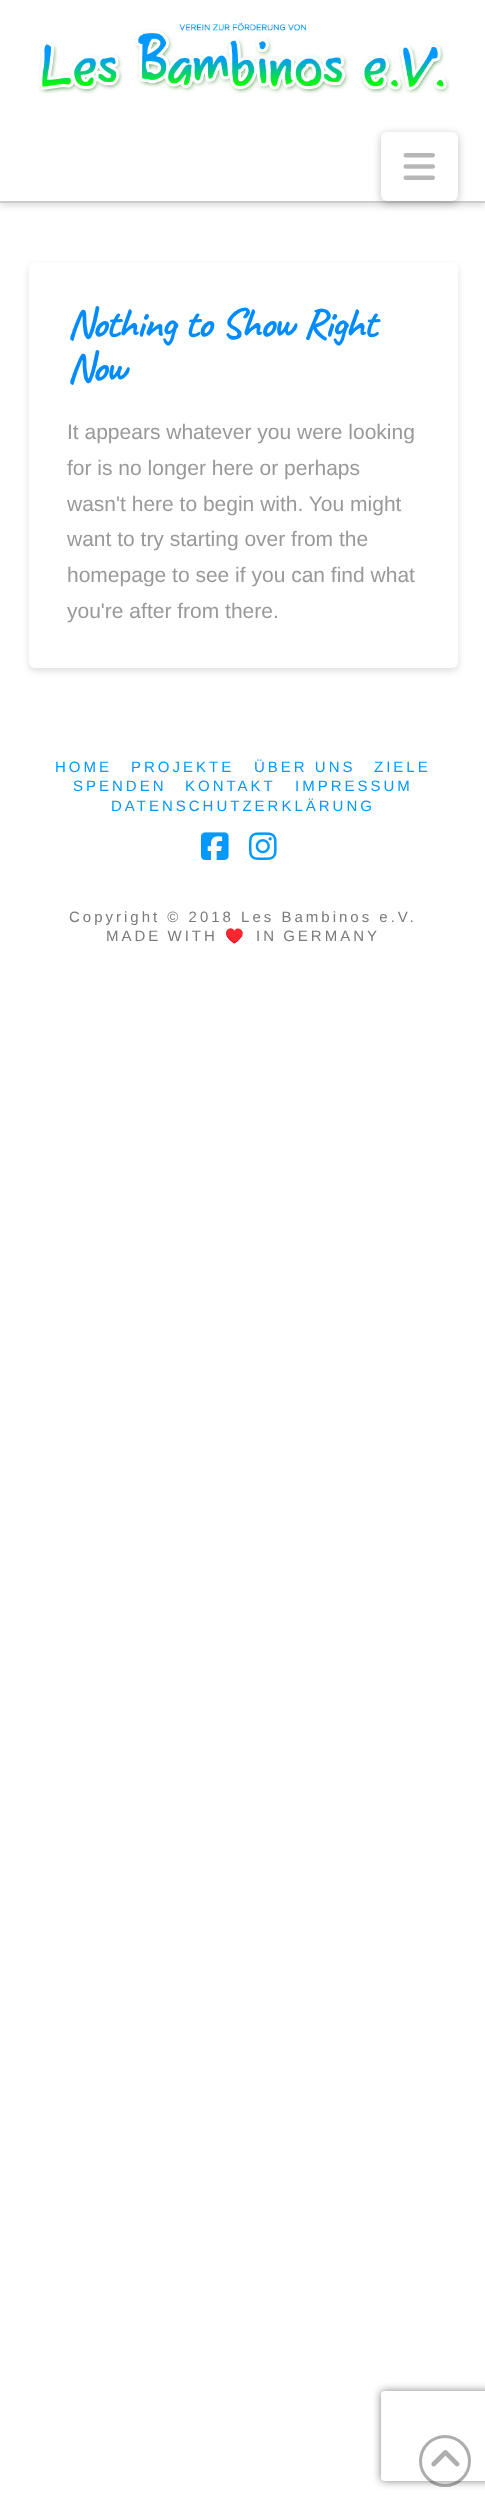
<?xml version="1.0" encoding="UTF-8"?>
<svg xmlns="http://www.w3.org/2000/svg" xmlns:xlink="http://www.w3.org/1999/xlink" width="485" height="2501">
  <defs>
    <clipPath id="clip1"><path d="M 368 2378 h 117 v 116 h -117 z m 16 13 h 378 c 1.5 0 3 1.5 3 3 v 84 c 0 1.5 -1.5 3 -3 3 h -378 c -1.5 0 -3 -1.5 -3 -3 v -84 c 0 -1.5 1.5 -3 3 -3 z" clip-rule="evenodd" /></clipPath>
  </defs>
  <rect width="100%" height="100%" fill="#ffffff" />
  <rect y="3" width="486" height="203" fill="#000000" fill-opacity="0.13" filter="blur(3.5px)" />
  <rect width="485" height="201" fill="#ffffff" />
  <rect y="201" width="485" height="2" fill="#cccccc" />
  <image x="38" y="22" width="412" height="72" xlink:href="image1.png" />
  <rect x="381" y="134" width="77" height="69" rx="6" fill="#000000" fill-opacity="0.25" filter="blur(4px)" />
  <rect x="381" y="132" width="77" height="69" rx="6" fill="#ffffff" />
  <image x="403" y="153" width="32" height="27" xlink:href="image2.png" />
  <rect x="29" y="266" width="429" height="405" rx="6" fill="#000000" fill-opacity="0.13" filter="blur(3.5px)" />
  <rect x="29" y="263" width="429" height="405" rx="6" fill="#ffffff" />
  <image x="201" y="832" width="28" height="28" xlink:href="image3.png" />
  <image x="249" y="832" width="28" height="28" xlink:href="image4.png" />
  <g clip-path="url(#clip1)">
    <rect x="381" y="2391" width="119" height="90" rx="3" fill="#808080" filter="blur(4px)" />
  </g>
  <circle cx="445" cy="2461" r="24.5" fill="none" stroke="#272727" stroke-opacity="0.38" stroke-width="3" />
  <image x="431" y="2450" width="29" height="17" xlink:href="image5.png" />
  <text x="67" y="337" word-spacing="1.5" style="font-family: Caveat; font-size: 42px; font-weight: bold; letter-spacing: -1.5px; fill: #008cff">Nothing to Show Right</text>
  <text x="67" y="381" style="font-family: Caveat; font-size: 42px; font-weight: bold; letter-spacing: -1.5px; fill: #008cff">Now</text>
  <text x="67" y="439" style="font-family: Liberation Sans; font-size: 21px; fill: #999999">It appears whatever you were looking</text>
  <text x="67" y="475" style="font-family: Liberation Sans; font-size: 21px; fill: #999999">for is no longer here or perhaps</text>
  <text x="67" y="511" style="font-family: Liberation Sans; font-size: 21px; fill: #999999">wasn't here to begin with. You might</text>
  <text x="67" y="546" style="font-family: Liberation Sans; font-size: 21px; fill: #999999">want to try starting over from the</text>
  <text x="67" y="582" style="font-family: Liberation Sans; font-size: 21px; fill: #999999">homepage to see if you can find what</text>
  <text x="67" y="618" style="font-family: Liberation Sans; font-size: 21px; fill: #999999">you're after from there.</text>
  <text x="55" y="772" style="font-family: Liberation Sans; font-size: 15px; letter-spacing: 3px; fill: #0099ff">HOME</text>
  <text x="131" y="772" style="font-family: Liberation Sans; font-size: 15px; letter-spacing: 3px; fill: #0099ff">PROJEKTE</text>
  <text x="254" y="772" style="font-family: Liberation Sans; font-size: 15px; letter-spacing: 3px; fill: #0099ff">ÜBER UNS</text>
  <text x="374" y="772" style="font-family: Liberation Sans; font-size: 15px; letter-spacing: 3px; fill: #0099ff">ZIELE</text>
  <text x="73" y="791" style="font-family: Liberation Sans; font-size: 15px; letter-spacing: 3px; fill: #0099ff">SPENDEN</text>
  <text x="185" y="791" style="font-family: Liberation Sans; font-size: 15px; letter-spacing: 3px; fill: #0099ff">KONTAKT</text>
  <text x="295" y="791" style="font-family: Liberation Sans; font-size: 15px; letter-spacing: 3px; fill: #0099ff">IMPRESSUM</text>
  <text x="111" y="811" style="font-family: Liberation Sans; font-size: 15px; letter-spacing: 3px; fill: #0099ff">DATENSCHUTZERKLÄRUNG</text>
  <text x="69" y="922" style="font-family: Liberation Sans; font-size: 15px; letter-spacing: 3px; fill: #7a7a7a">Copyright © 2018 Les Bambinos e.V.</text>
  <text x="106" y="941" word-spacing="-1" style="font-family: Liberation Sans; font-size: 15px; letter-spacing: 3px; fill: #7a7a7a">MADE WITH</text>
  <text x="225" y="941" style="font-family: Noto Color Emoji; font-size: 15px; letter-spacing: 3px; fill: #7a7a7a">♥️</text>
  <text x="256" y="941" word-spacing="-1" style="font-family: Liberation Sans; font-size: 15px; letter-spacing: 3px; fill: #7a7a7a">IN GERMANY</text>
</svg>
